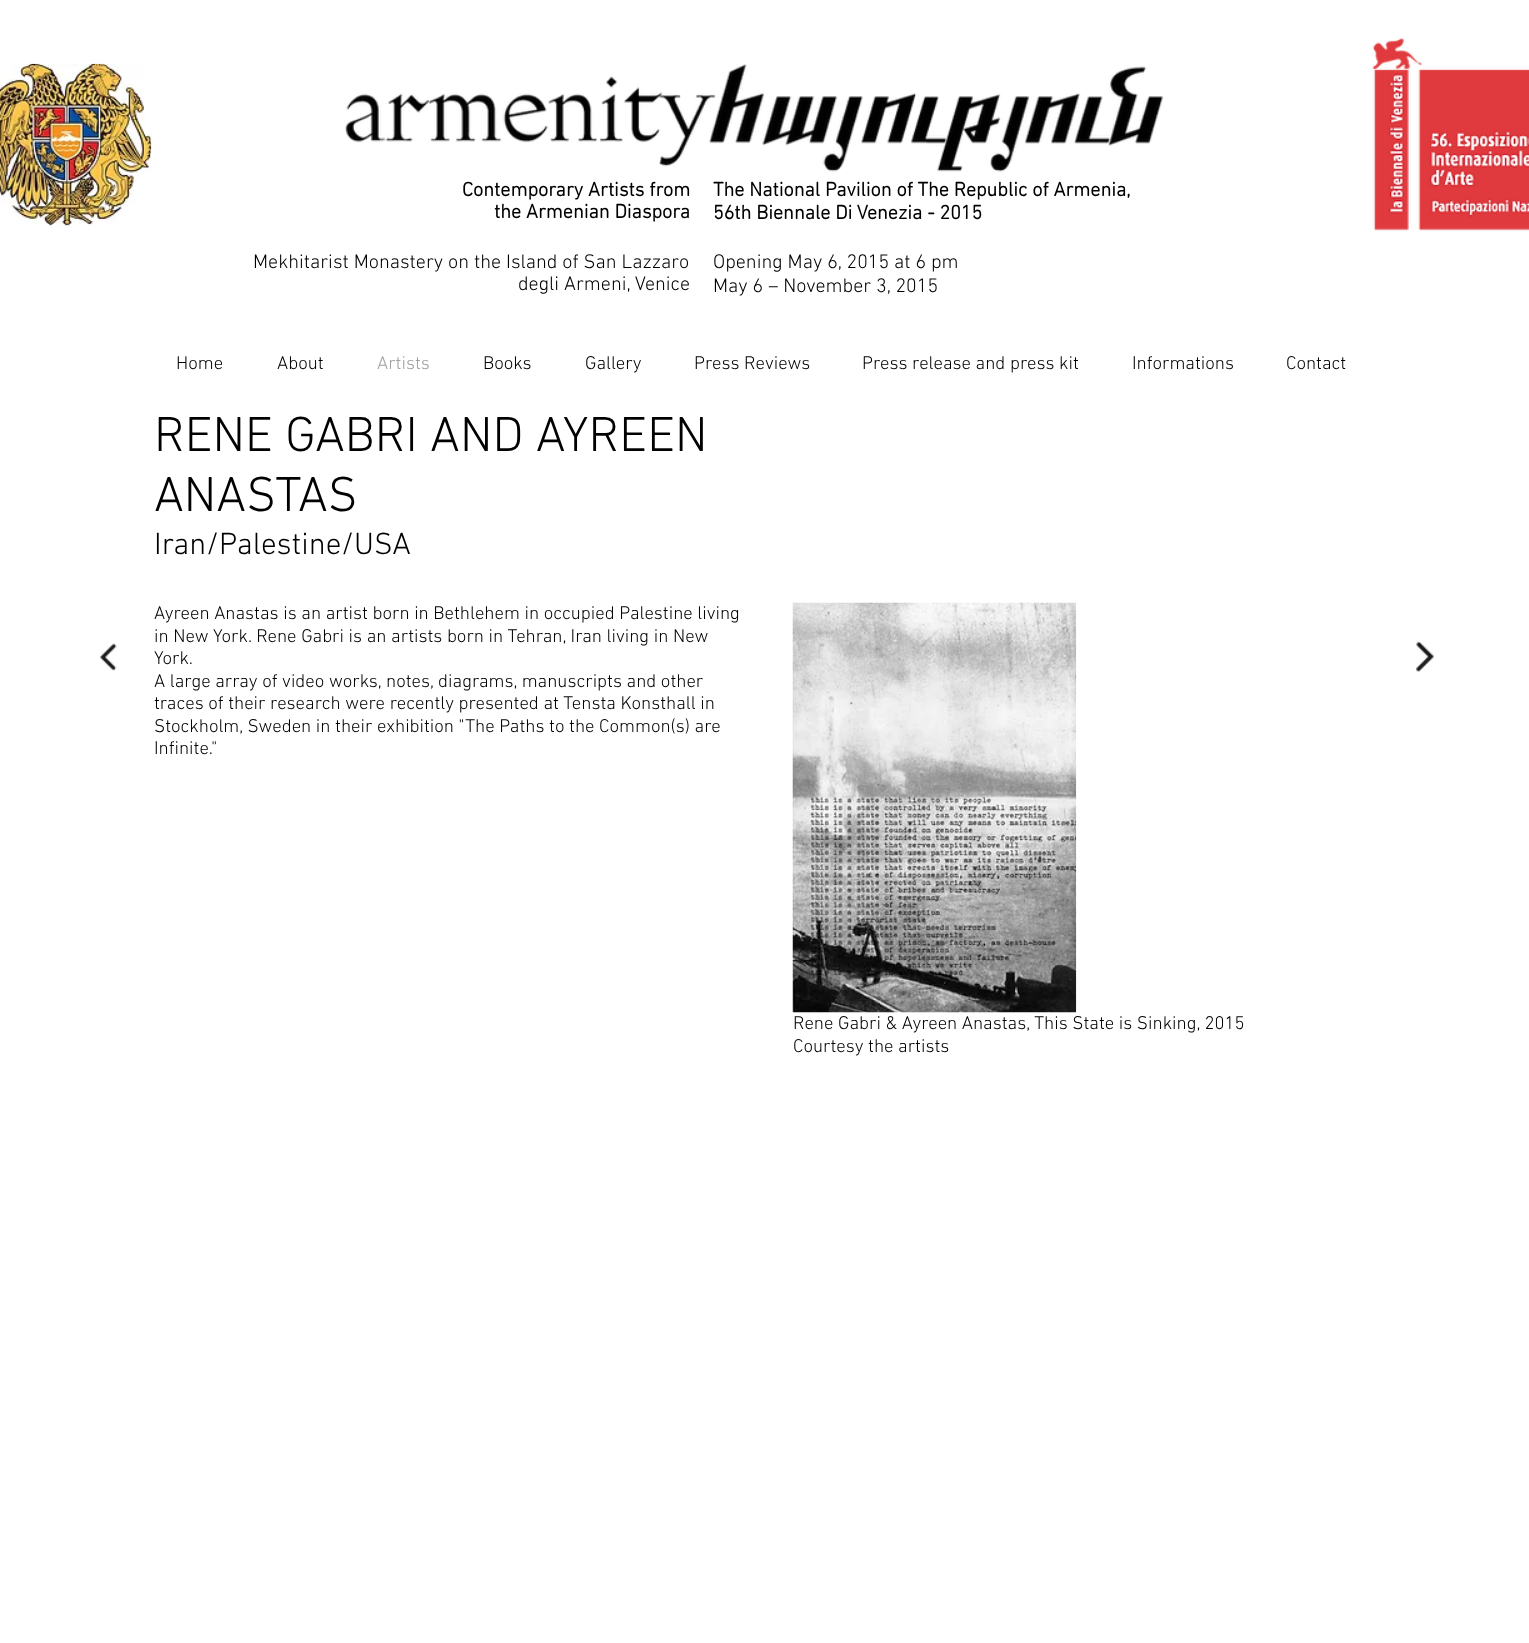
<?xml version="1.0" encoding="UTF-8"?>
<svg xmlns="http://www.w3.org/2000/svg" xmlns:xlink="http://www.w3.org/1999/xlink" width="1529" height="1643">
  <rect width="100%" height="100%" fill="#ffffff" />
  <image x="0" y="63" width="152" height="166" xlink:href="image1.png" />
  <image x="345" y="64" width="819" height="108" xlink:href="image2.png" />
  <image x="1372" y="38" width="157" height="193" xlink:href="image3.png" />
  <image x="99" y="643" width="18" height="28" xlink:href="image4.png" />
  <image x="792" y="602" width="285" height="411" xlink:href="image5.png" />
  <image x="1416" y="641" width="18" height="31" xlink:href="image6.png" />
  <text x="462" y="196" style="font-family: 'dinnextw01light'; font-size: 20px; font-weight: bold; fill: #000000">Contemporary Artists from</text>
  <text x="494" y="218" style="font-family: 'dinnextw01light'; font-size: 20px; font-weight: bold; fill: #000000">the Armenian Diaspora</text>
  <text x="253" y="268" style="font-family: 'dinnextw01light'; font-size: 20px; font-weight: 300; fill: #000000">Mekhitarist Monastery on the Island of San Lazzaro</text>
  <text x="518" y="290" style="font-family: 'dinnextw01light'; font-size: 20px; font-weight: 300; fill: #000000">degli Armeni, Venice</text>
  <text x="713" y="196" style="font-family: 'dinnextw01light'; font-size: 20px; font-weight: bold; fill: #000000">The National Pavilion of The Republic of Armenia,</text>
  <text x="713" y="219" style="font-family: 'dinnextw01light'; font-size: 20px; font-weight: bold; fill: #000000">56th Biennale Di Venezia - 2015</text>
  <text x="713" y="268" style="font-family: 'dinnextw01light'; font-size: 20px; font-weight: 300; fill: #000000">Opening May 6, 2015 at 6 pm</text>
  <text x="713" y="292" style="font-family: 'dinnextw01light'; font-size: 20px; font-weight: 300; fill: #000000">May 6 – November 3, 2015</text>
  <text x="176" y="369" style="font-family: 'dinnextw01light'; font-size: 18.75px; font-weight: 300; fill: #000000">Home</text>
  <text x="277" y="369" style="font-family: 'dinnextw01light'; font-size: 18.75px; font-weight: 300; fill: #000000">About</text>
  <text x="377" y="369" style="font-family: 'dinnextw01light'; font-size: 18.75px; font-weight: 300; fill: #a0a09f">Artists</text>
  <text x="483" y="369" style="font-family: 'dinnextw01light'; font-size: 18.75px; font-weight: 300; fill: #000000">Books</text>
  <text x="585" y="369" style="font-family: 'dinnextw01light'; font-size: 18.75px; font-weight: 300; fill: #000000">Gallery</text>
  <text x="694" y="369" style="font-family: 'dinnextw01light'; font-size: 18.75px; font-weight: 300; fill: #000000">Press Reviews</text>
  <text x="862" y="369" style="font-family: 'dinnextw01light'; font-size: 18.75px; font-weight: 300; fill: #000000">Press release and press kit</text>
  <text x="1132" y="369" style="font-family: 'dinnextw01light'; font-size: 18.75px; font-weight: 300; fill: #000000">Informations</text>
  <text x="1286" y="369" style="font-family: 'dinnextw01light'; font-size: 18.75px; font-weight: 300; fill: #000000">Contact</text>
  <text x="154" y="451" style="font-family: 'dinnextw01light'; font-size: 50px; font-weight: 300; fill: #000000">RENE GABRI AND AYREEN</text>
  <text x="154" y="511" style="font-family: 'dinnextw01light'; font-size: 50px; font-weight: 300; fill: #000000">ANASTAS</text>
  <text x="154" y="554" style="font-family: 'dinnextw01light'; font-size: 31.25px; font-weight: 300; fill: #000000">Iran/Palestine/USA</text>
  <text x="154" y="619" style="font-family: 'dinnextw01light'; font-size: 18.75px; font-weight: 300; fill: #000000">Ayreen Anastas is an artist born in Bethlehem in occupied Palestine living</text>
  <text x="154" y="642" style="font-family: 'dinnextw01light'; font-size: 18.75px; font-weight: 300; fill: #000000">in New York. Rene Gabri is an artists born in Tehran, Iran living in New</text>
  <text x="154" y="664" style="font-family: 'dinnextw01light'; font-size: 18.75px; font-weight: 300; fill: #000000">York.</text>
  <text x="154" y="687" style="font-family: 'dinnextw01light'; font-size: 18.75px; font-weight: 300; fill: #000000">A large array of video works, notes, diagrams, manuscripts and other</text>
  <text x="154" y="709" style="font-family: 'dinnextw01light'; font-size: 18.75px; font-weight: 300; fill: #000000">traces of their research were recently presented at Tensta Konsthall in</text>
  <text x="154" y="732" style="font-family: 'dinnextw01light'; font-size: 18.75px; font-weight: 300; fill: #000000">Stockholm, Sweden in their exhibition "The Paths to the Common(s) are</text>
  <text x="154" y="754" style="font-family: 'dinnextw01light'; font-size: 18.75px; font-weight: 300; fill: #000000">Infinite."</text>
  <text x="793" y="1029" style="font-family: 'dinnextw01light'; font-size: 18.75px; font-weight: 300; fill: #000000">Rene Gabri &amp; Ayreen Anastas, This State is Sinking, 2015</text>
  <text x="793" y="1052" style="font-family: 'dinnextw01light'; font-size: 18.75px; font-weight: 300; fill: #000000">Courtesy the artists</text>
</svg>
